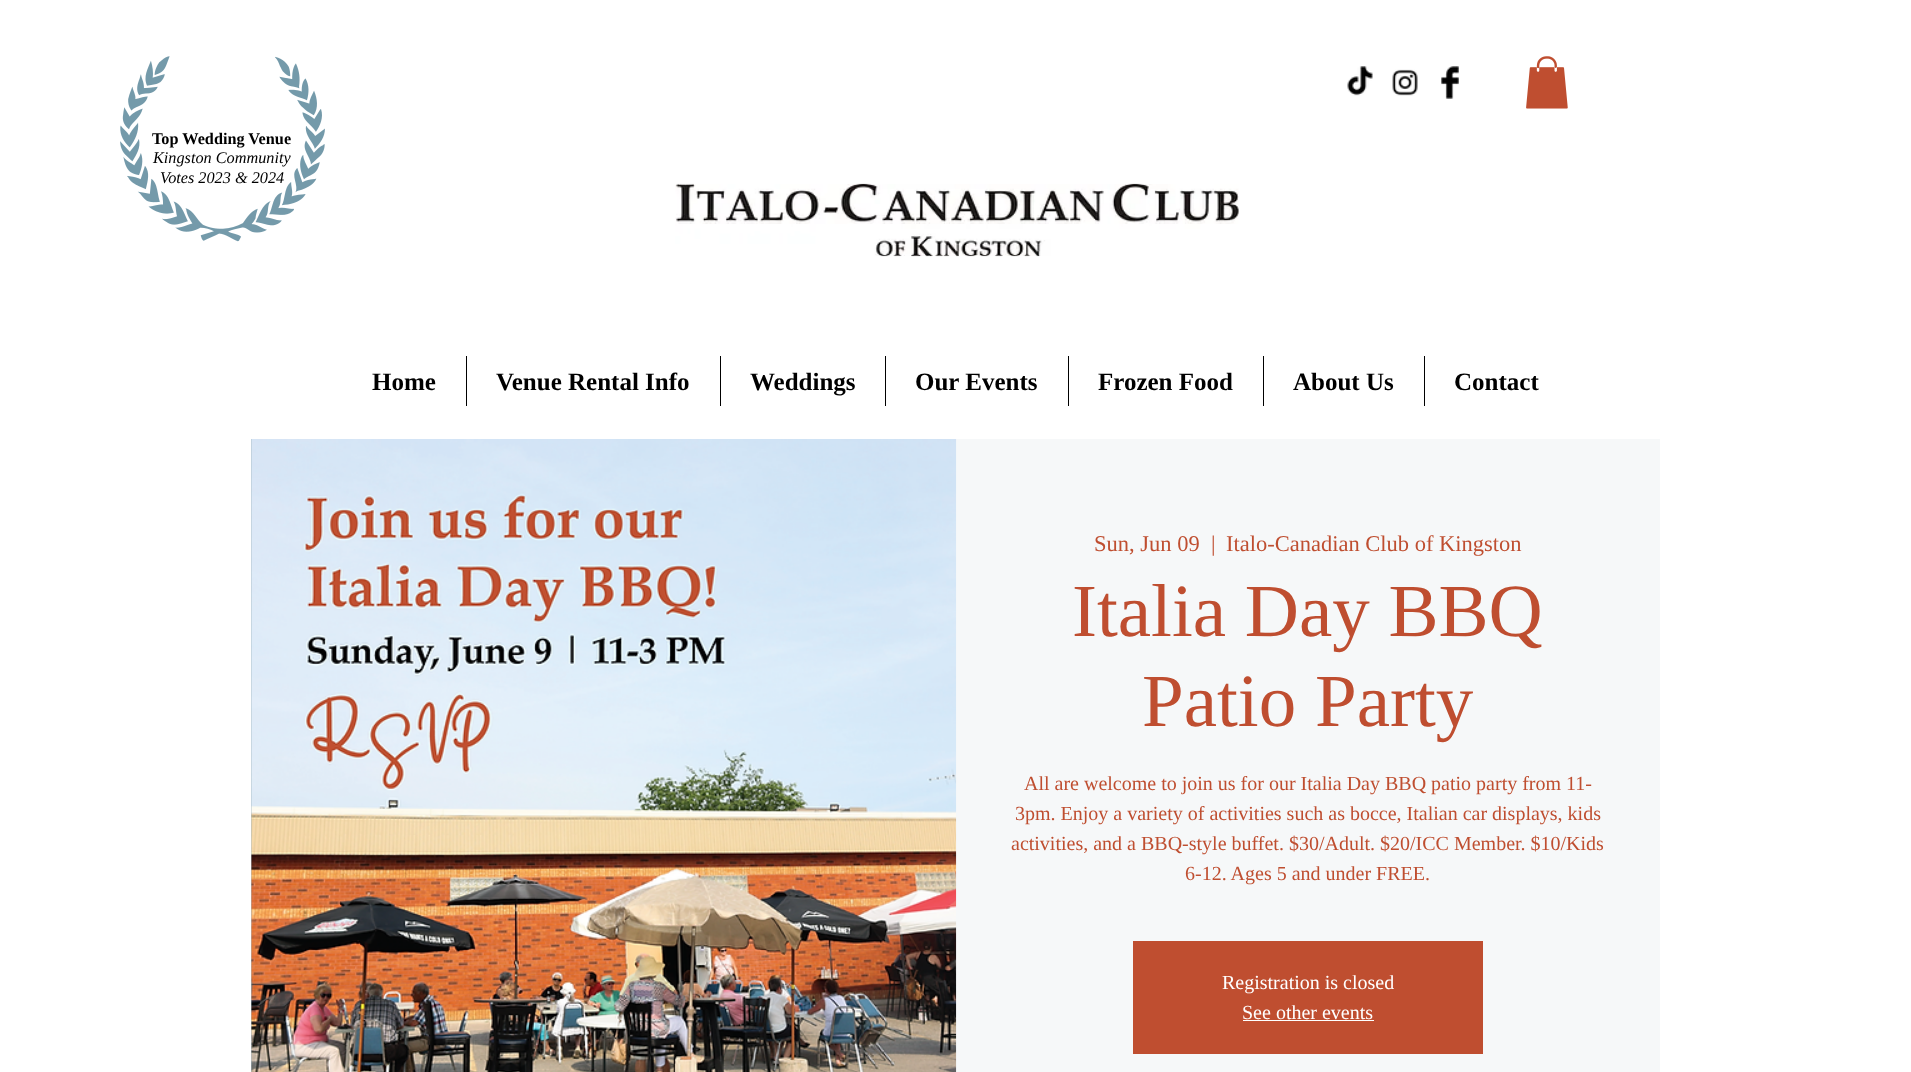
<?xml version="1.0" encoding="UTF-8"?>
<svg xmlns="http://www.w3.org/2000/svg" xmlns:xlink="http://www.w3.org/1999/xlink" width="1911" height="1072">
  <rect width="100%" height="100%" fill="#ffffff" />
  <image x="120" y="56" width="205" height="186" xlink:href="image1.png" />
  <image x="1347" y="66" width="26" height="30" xlink:href="image2.png" />
  <image x="1392" y="69" width="26" height="27" xlink:href="image3.png" />
  <image x="1441" y="66" width="18" height="33" xlink:href="image4.png" />
  <image x="1526" y="56" width="42" height="53" xlink:href="image5.png" />
  <image x="675" y="183" width="564" height="74" xlink:href="image6.png" />
  <rect x="466" y="356" width="1" height="50" fill="#000000" />
  <rect x="720" y="356" width="1" height="50" fill="#000000" />
  <rect x="885" y="356" width="1" height="50" fill="#000000" />
  <rect x="1068" y="356" width="1" height="50" fill="#000000" />
  <rect x="1263" y="356" width="1" height="50" fill="#000000" />
  <rect x="1424" y="356" width="1" height="50" fill="#000000" />
  <rect x="251" y="439" width="1" height="633" fill="#a7bdc6" />
  <image x="251" y="439" width="706" height="633" xlink:href="image7.png" />
  <rect x="956" y="439" width="704" height="633" fill="#a7bdc6" fill-opacity="0.1" />
  <rect x="1133" y="941" width="350" height="113" fill="#bf4e30" />
  <rect x="1243" y="1020" width="131" height="1" fill="#ffffff" />
  <text x="152" y="144" style="font-family: Liberation Serif; font-size: 16.25px; font-weight: bold; fill: #000000">Top Wedding Venue</text>
  <text x="153" y="163" style="font-family: Liberation Serif; font-size: 16.25px; font-style: italic; fill: #000000">Kingston Community</text>
  <text x="160" y="183" style="font-family: Liberation Serif; font-size: 16.25px; font-style: italic; fill: #000000">Votes 2023 &amp; 2024</text>
  <text x="372" y="390" style="font-family: Liberation Serif; font-size: 25px; font-weight: bold; fill: #000000">Home</text>
  <text x="496" y="390" style="font-family: Liberation Serif; font-size: 25px; font-weight: bold; fill: #000000">Venue Rental Info</text>
  <text x="750" y="390" style="font-family: Liberation Serif; font-size: 25px; font-weight: bold; fill: #000000">Weddings</text>
  <text x="915" y="390" style="font-family: Liberation Serif; font-size: 25px; font-weight: bold; fill: #000000">Our Events</text>
  <text x="1098" y="390" style="font-family: Liberation Serif; font-size: 25px; font-weight: bold; fill: #000000">Frozen Food</text>
  <text x="1293" y="390" style="font-family: Liberation Serif; font-size: 25px; font-weight: bold; fill: #000000">About Us</text>
  <text x="1454" y="390" style="font-family: Liberation Serif; font-size: 25px; font-weight: bold; fill: #000000">Contact</text>
  <text x="1094" y="551" style="font-family: Liberation Serif; font-size: 22.5px; fill: #bf4e30">Sun, Jun 09</text>
  <text x="1211" y="551" style="font-family: Liberation Serif; font-size: 22.5px; fill: #bf4e30">|</text>
  <text x="1226" y="551" style="font-family: Liberation Serif; font-size: 22.5px; fill: #bf4e30">Italo-Canadian Club of Kingston</text>
  <text x="1072" y="636" style="font-family: Liberation Serif; font-size: 75px; fill: #bf4e30">Italia Day BBQ</text>
  <text x="1142" y="726" style="font-family: Liberation Serif; font-size: 75px; fill: #bf4e30">Patio Party</text>
  <text x="1024" y="790" style="font-family: Liberation Serif; font-size: 20px; fill: #bf4e30">All are welcome to join us for our Italia Day BBQ patio party from 11-</text>
  <text x="1015" y="820" style="font-family: Liberation Serif; font-size: 20px; fill: #bf4e30">3pm. Enjoy a variety of activities such as bocce, Italian car displays, kids</text>
  <text x="1011" y="850" style="font-family: Liberation Serif; font-size: 20px; fill: #bf4e30">activities, and a BBQ-style buffet. $30/Adult. $20/ICC Member. $10/Kids</text>
  <text x="1185" y="880" style="font-family: Liberation Serif; font-size: 20px; fill: #bf4e30">6-12. Ages 5 and under FREE.</text>
  <text x="1222" y="989" style="font-family: Liberation Serif; font-size: 20px; fill: #ffffff">Registration is closed</text>
  <text x="1242" y="1019" style="font-family: Liberation Serif; font-size: 20px; fill: #ffffff">See other events</text>
</svg>
